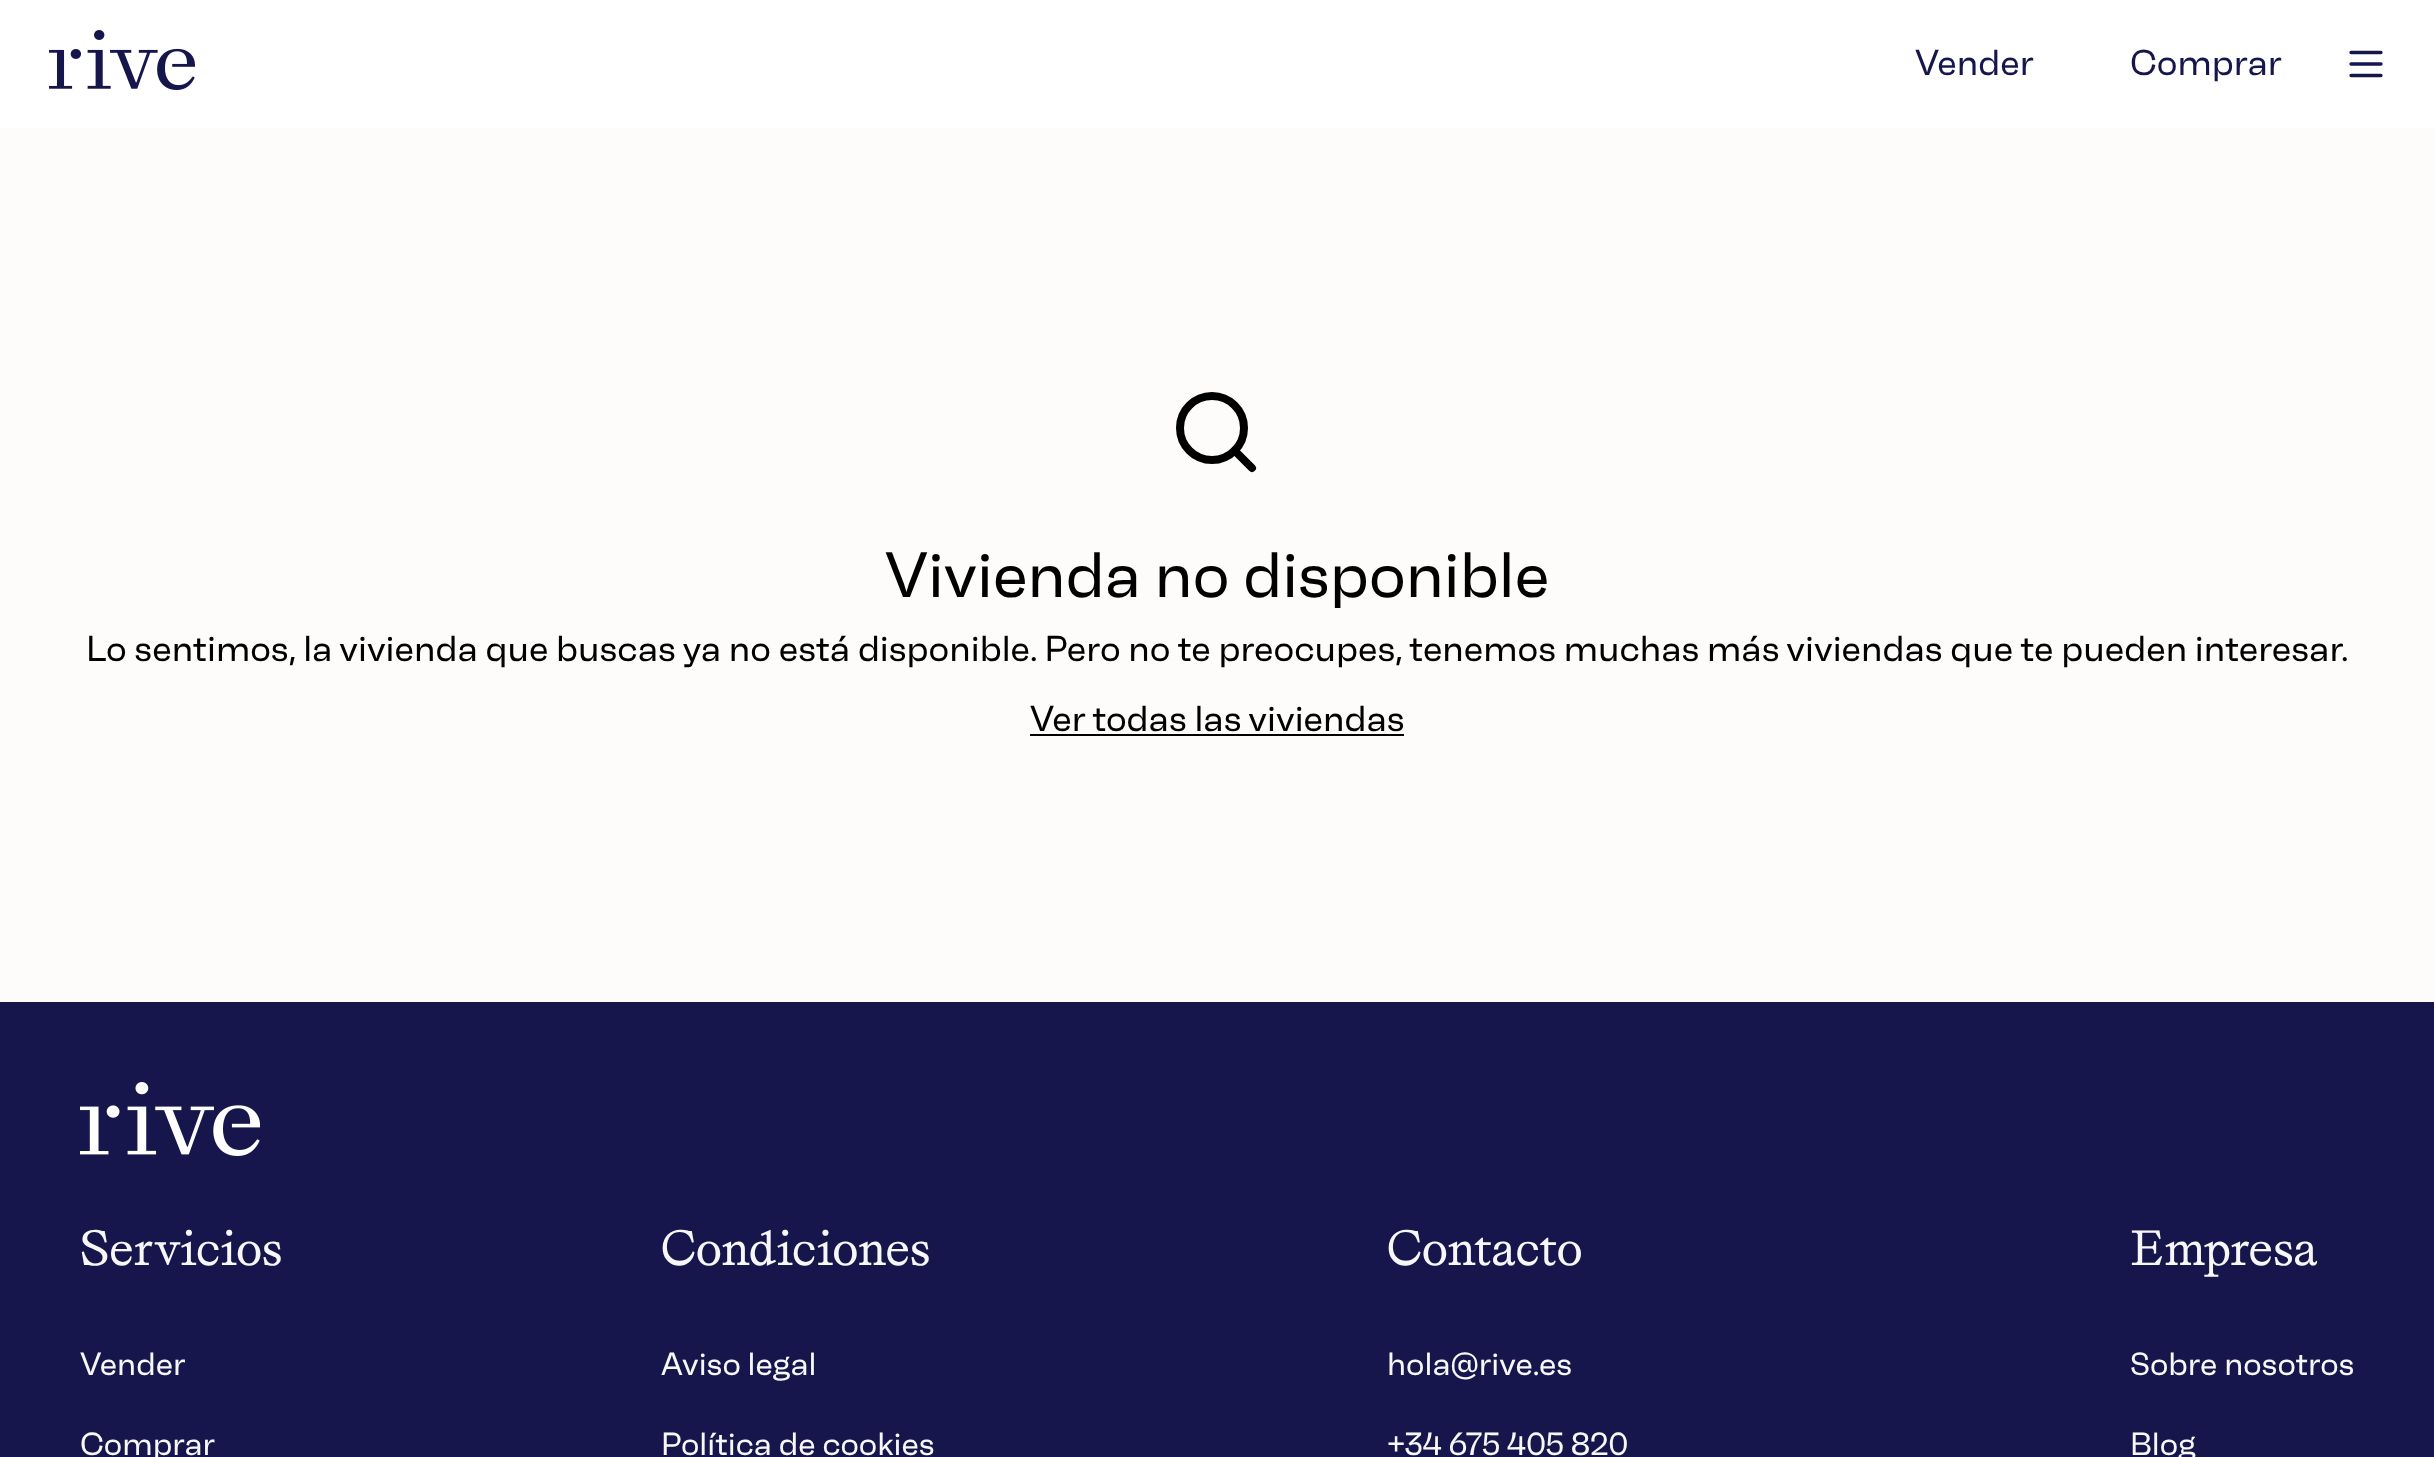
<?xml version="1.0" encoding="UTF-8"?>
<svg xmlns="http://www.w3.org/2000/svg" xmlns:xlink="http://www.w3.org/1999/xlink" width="2434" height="1457">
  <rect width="100%" height="100%" fill="#fdfcfb" />
  <rect width="2434" height="128" fill="#ffffff" />
  <image x="49" y="30" width="146" height="60" xlink:href="image1.png" />
  <path d="M 2351 52.5 h 30 m -30 11.5 h 30 m -30 11.5 h 30" fill="none" stroke="#17164c" stroke-width="3.3" stroke-linecap="round" stroke-linejoin="round" />
  <path d="M 1252 468 l -17.5 -17.5" fill="none" stroke="#000000" stroke-width="8" stroke-linecap="round" stroke-linejoin="round" />
  <circle cx="1212" cy="428" r="32" fill="none" stroke="#000000" stroke-width="8" />
  <rect x="1030" y="734" width="374" height="2" fill="#000000" />
  <rect y="1002" width="2434" height="455" fill="#17164c" />
  <image x="80" y="1082" width="180" height="74" xlink:href="image2.png" />
  <text x="1915" y="75" style="font-family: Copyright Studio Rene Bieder; font-size: 36px; fill: #17164c">Vender</text>
  <text x="2130" y="75" style="font-family: Copyright Studio Rene Bieder; font-size: 36px; fill: #17164c">Comprar</text>
  <text x="885" y="597" style="font-family: Copyright Studio Rene Bieder; font-size: 64px; fill: #000000">Vivienda no disponible</text>
  <text x="86" y="661" style="font-family: Copyright Studio Rene Bieder; font-size: 36px; fill: #000000">Lo sentimos, la vivienda que buscas ya no está disponible. Pero no te preocupes, tenemos muchas más viviendas que te pueden interesar.</text>
  <text x="1030" y="731" style="font-family: Copyright Studio Rene Bieder; font-size: 36px; fill: #000000">Ver todas las viviendas</text>
  <text x="80" y="1265" style="font-family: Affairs; font-size: 48px; fill: #f7f7f7">Servicios</text>
  <text x="80" y="1375" style="font-family: Copyright Studio Rene Bieder; font-size: 32px; fill: #f7f7f7">Vender</text>
  <text x="80" y="1455" style="font-family: Copyright Studio Rene Bieder; font-size: 32px; fill: #f7f7f7">Comprar</text>
  <text x="661" y="1265" style="font-family: Affairs; font-size: 48px; fill: #f7f7f7">Condiciones</text>
  <text x="661" y="1375" style="font-family: Copyright Studio Rene Bieder; font-size: 32px; fill: #f7f7f7">Aviso legal</text>
  <text x="661" y="1455" style="font-family: Copyright Studio Rene Bieder; font-size: 32px; fill: #f7f7f7">Política de cookies</text>
  <text x="1387" y="1265" style="font-family: Affairs; font-size: 48px; fill: #f7f7f7">Contacto</text>
  <text x="1387" y="1375" style="font-family: Copyright Studio Rene Bieder; font-size: 32px; fill: #f7f7f7">hola@rive.es</text>
  <text x="1387" y="1455" style="font-family: Copyright Studio Rene Bieder; font-size: 32px; fill: #f7f7f7">+34 675 405 820</text>
  <text x="2130" y="1265" style="font-family: Affairs; font-size: 48px; fill: #f7f7f7">Empresa</text>
  <text x="2130" y="1375" style="font-family: Copyright Studio Rene Bieder; font-size: 32px; fill: #f7f7f7">Sobre nosotros</text>
  <text x="2130" y="1455" style="font-family: Copyright Studio Rene Bieder; font-size: 32px; fill: #f7f7f7">Blog</text>
</svg>
